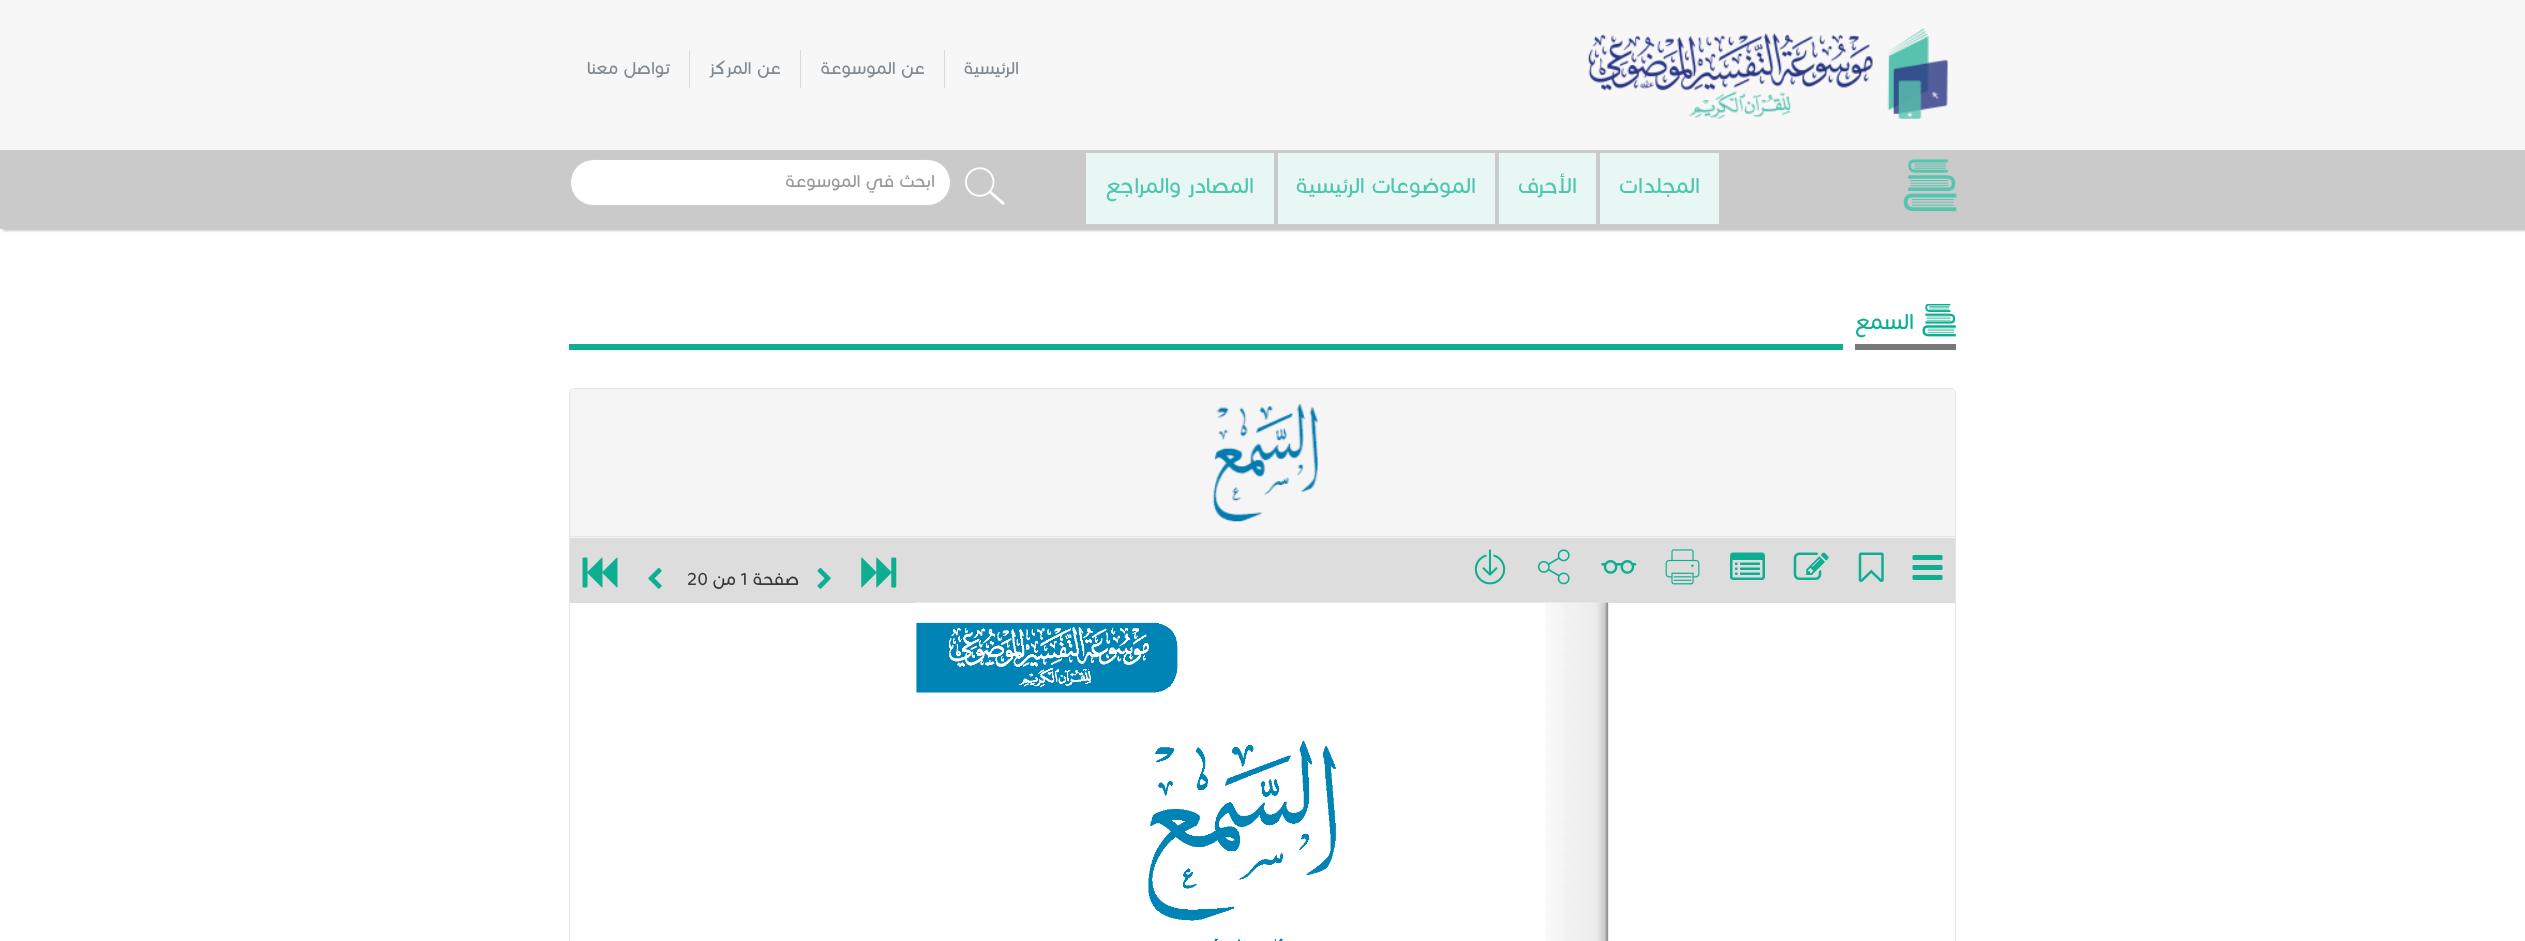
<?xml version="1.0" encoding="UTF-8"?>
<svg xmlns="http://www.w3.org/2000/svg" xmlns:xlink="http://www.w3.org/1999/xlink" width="2525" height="941">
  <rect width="100%" height="100%" fill="#ffffff" />
  <rect x="3" y="153" width="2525" height="78" fill="#ccc7c7" filter="blur(1px)" />
  <rect width="2525" height="150" fill="#f7f7f7" />
  <image x="1588" y="28" width="360" height="91" xlink:href="image1.png" />
  <rect x="944" y="50" width="1" height="38" fill="#dadada" />
  <rect x="800" y="50" width="1" height="38" fill="#dadada" />
  <rect x="689" y="50" width="1" height="38" fill="#dadada" />
  <rect y="150" width="2525" height="79" fill="#cacaca" />
  <image x="1903" y="159" width="54" height="53" xlink:href="image2.png" />
  <rect x="1600" y="153" width="119" height="71" fill="#e8f7f4" />
  <rect x="1499" y="153" width="97" height="71" fill="#e8f7f4" />
  <rect x="1278" y="153" width="217" height="71" fill="#e8f7f4" />
  <rect x="1086" y="153" width="188" height="71" fill="#e8f7f4" />
  <image x="965" y="167" width="40" height="38" xlink:href="image3.png" />
  <rect x="570.5" y="159.5" width="380" height="46" rx="23" fill="#ffffff" stroke="#cccccc" />
  <image x="1922" y="304" width="34" height="33" xlink:href="image4.png" />
  <rect x="1855" y="344" width="101" height="6" fill="#787878" />
  <rect x="569" y="344" width="1274" height="6" fill="#0eae90" />
  <rect x="569.5" y="388.5" width="1386" height="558" rx="4.5" fill="none" stroke="#e5e5e5" />
  <path d="M 575 389 h 1375 c 3 0 5 2 5 5 v 144 h -1385 v -144 c 0 -3 2 -5 5 -5 z" fill="#f5f5f5" />
  <rect x="570" y="536" width="1385" height="1" fill="#e5e5e5" />
  <image x="1212" y="403" width="107" height="119" xlink:href="image5.png" />
  <rect x="570" y="538" width="1385" height="65" fill="#dddddd" />
  <image x="1912" y="555" width="31" height="25" xlink:href="image6.png" />
  <image x="1858" y="552" width="26" height="30" xlink:href="image7.png" />
  <image x="1793" y="552" width="36" height="28" xlink:href="image8.png" />
  <image x="1730" y="552" width="35" height="28" xlink:href="image9.png" />
  <image x="1665" y="549" width="35" height="36" xlink:href="image10.png" />
  <image x="1601" y="560" width="36" height="14" xlink:href="image11.png" />
  <image x="1537" y="549" width="33" height="36" xlink:href="image12.png" />
  <image x="1474" y="549" width="32" height="36" xlink:href="image13.png" />
  <image x="861" y="557" width="36" height="31" xlink:href="image14.png" />
  <image x="817" y="567" width="14" height="22" xlink:href="image15.png" />
  <image x="648" y="567" width="14" height="22" xlink:href="image16.png" />
  <image x="582" y="557" width="36" height="31" xlink:href="image17.png" />
  <image x="916" y="602" width="693" height="1" xlink:href="image18.png" />
  <image x="1597" y="602" width="11" height="1" xlink:href="image19.png" />
  <image x="916" y="602" width="693" height="339" xlink:href="image20.png" />
  <image x="1545" y="602" width="64" height="339" xlink:href="image21.png" />
  <text x="1019" y="74" style="font-family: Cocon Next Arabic; font-size: 20px; font-weight: 300; direction: rtl; fill: #818a91">الرئيسية</text>
  <text x="925" y="74" style="font-family: Cocon Next Arabic; font-size: 20px; font-weight: 300; direction: rtl; fill: #818a91">عن الموسوعة</text>
  <text x="781" y="74" style="font-family: Cocon Next Arabic; font-size: 20px; font-weight: 300; direction: rtl; fill: #818a91">عن المركز</text>
  <text x="670" y="74" style="font-family: Cocon Next Arabic; font-size: 20px; font-weight: 300; direction: rtl; fill: #818a91">تواصل معنا</text>
  <text x="1700" y="193" style="font-family: Cocon Next Arabic; font-size: 25px; font-weight: 300; direction: rtl; fill: #50c5af">المجلدات</text>
  <text x="1577" y="193" style="font-family: Cocon Next Arabic; font-size: 25px; font-weight: 300; direction: rtl; fill: #50c5af">الأحرف</text>
  <text x="1476" y="193" style="font-family: Cocon Next Arabic; font-size: 25px; font-weight: 300; direction: rtl; fill: #50c5af">الموضوعات الرئيسية</text>
  <text x="1254" y="193" style="font-family: Cocon Next Arabic; font-size: 25px; font-weight: 300; direction: rtl; fill: #50c5af">المصادر والمراجع</text>
  <text x="935" y="187" style="font-family: Cocon Next Arabic; font-size: 20px; font-weight: 300; direction: rtl; fill: #999999">ابحث في الموسوعة</text>
  <text x="1914" y="329" style="font-family: Cocon Next Arabic; font-size: 25px; font-weight: 300; direction: rtl; fill: #0eae90">السمع</text>
  <text x="799" y="585" style="font-family: Cocon Next Arabic; font-size: 20px; font-weight: 300; direction: rtl; fill: #373a3c">صفحة</text>
  <text x="741" y="585" style="font-family: Cocon Next Arabic; font-size: 20px; font-weight: 300; fill: #373a3c">1</text>
  <text x="736" y="585" style="font-family: Cocon Next Arabic; font-size: 20px; font-weight: 300; direction: rtl; fill: #373a3c">من</text>
  <text x="687" y="585" style="font-family: Cocon Next Arabic; font-size: 20px; font-weight: 300; fill: #373a3c">20</text>
</svg>
